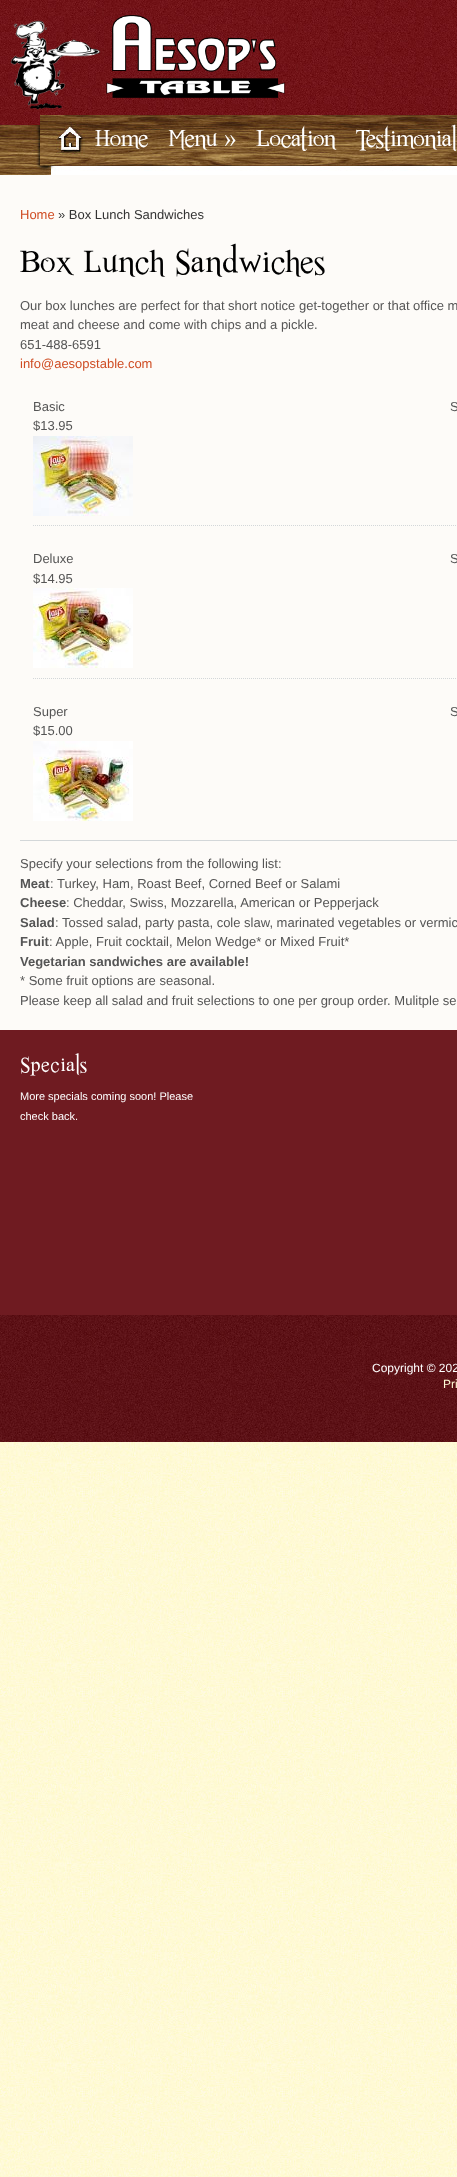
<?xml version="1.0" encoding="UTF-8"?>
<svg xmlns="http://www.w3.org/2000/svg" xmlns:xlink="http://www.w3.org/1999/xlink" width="457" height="2177">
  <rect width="100%" height="100%" fill="#ffffff" />
  <image x="0" y="1442" width="457" height="735" xlink:href="image1.png" />
  <image x="0" y="85" width="457" height="30" xlink:href="image2.png" />
  <image x="0" y="0" width="457" height="85" xlink:href="image3.png" />
  <image x="10" y="20" width="91" height="90" xlink:href="image4.png" />
  <image x="106" y="15" width="179" height="83" xlink:href="image5.png" />
  <image x="0" y="115" width="457" height="60" xlink:href="image6.png" />
  <image x="40" y="115" width="45" height="50" xlink:href="image7.png" />
  <rect y="175" width="457" height="855" fill="#fdfbf8" />
  <rect x="20" y="840" width="437" height="1" fill="#d3d7d9" />
  <path d="M 33 525.5 h 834" fill="none" stroke="#d3d7d9" stroke-dasharray="1 1" />
  <image x="33" y="436" width="100" height="80" xlink:href="image8.png" />
  <path d="M 33 678.5 h 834" fill="none" stroke="#d3d7d9" stroke-dasharray="1 1" />
  <image x="33" y="588" width="100" height="80" xlink:href="image9.png" />
  <image x="33" y="741" width="100" height="80" xlink:href="image10.png" />
  <rect y="1030" width="457" height="285" fill="#6f1b21" />
  <image x="0" y="1315" width="457" height="127" xlink:href="image11.png" />
  <text x="95" y="146" style="font-family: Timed; font-size: 24px; fill: #ffffff">Home</text>
  <text x="168" y="146" style="font-family: Timed; font-size: 24px; fill: #ffffff">Menu »</text>
  <text x="256" y="146" style="font-family: Timed; font-size: 24px; fill: #ffffff">Location</text>
  <text x="356" y="146" style="font-family: Timed; font-size: 24px; fill: #ffffff">Testimonial</text>
  <text x="20" y="219" style="font-family: Liberation Sans; font-size: 13px; fill: #cf4c23">Home</text>
  <text x="58" y="219" style="font-family: Liberation Sans; font-size: 13px; fill: #333333">» Box Lunch Sandwiches</text>
  <text x="20" y="272" style="font-family: Timed; font-size: 32px; letter-spacing: 1px; fill: #000000">Box Lunch Sandwiches</text>
  <text x="20" y="310" style="font-family: Liberation Sans; font-size: 13px; fill: #555555">Our box lunches are perfect for that short notice get-together or that office m</text>
  <text x="20" y="329" style="font-family: Liberation Sans; font-size: 13px; fill: #555555">meat and cheese and come with chips and a pickle.</text>
  <text x="20" y="349" style="font-family: Liberation Sans; font-size: 13px; fill: #555555">651-488-6591</text>
  <text x="20" y="368" style="font-family: Liberation Sans; font-size: 13px; fill: #cf4c23">info@aesopstable.com</text>
  <text x="33" y="411" style="font-family: Liberation Sans; font-size: 13px; fill: #555555">Basic</text>
  <text x="33" y="430" style="font-family: Liberation Sans; font-size: 13px; fill: #555555">$13.95</text>
  <text x="450" y="411" style="font-family: Liberation Sans; font-size: 13px; fill: #555555">S</text>
  <text x="33" y="563" style="font-family: Liberation Sans; font-size: 13px; fill: #555555">Deluxe</text>
  <text x="33" y="583" style="font-family: Liberation Sans; font-size: 13px; fill: #555555">$14.95</text>
  <text x="450" y="563" style="font-family: Liberation Sans; font-size: 13px; fill: #555555">S</text>
  <text x="33" y="716" style="font-family: Liberation Sans; font-size: 13px; fill: #555555">Super</text>
  <text x="33" y="735" style="font-family: Liberation Sans; font-size: 13px; fill: #555555">$15.00</text>
  <text x="450" y="716" style="font-family: Liberation Sans; font-size: 13px; fill: #555555">S</text>
  <text x="20" y="868" style="font-family: Liberation Sans; font-size: 13px; fill: #555555">Specify your selections from the following list:</text>
  <text x="20" y="888" style="font-family: Liberation Sans; font-size: 13px; font-weight: bold; fill: #555555">Meat</text>
  <text x="50" y="888" style="font-family: Liberation Sans; font-size: 13px; fill: #555555">: Turkey, Ham, Roast Beef, Corned Beef or Salami</text>
  <text x="20" y="907" style="font-family: Liberation Sans; font-size: 13px; font-weight: bold; fill: #555555">Cheese</text>
  <text x="66" y="907" style="font-family: Liberation Sans; font-size: 13px; fill: #555555">: Cheddar, Swiss, Mozzarella, American or Pepperjack</text>
  <text x="20" y="927" style="font-family: Liberation Sans; font-size: 13px; font-weight: bold; fill: #555555">Salad</text>
  <text x="55" y="927" style="font-family: Liberation Sans; font-size: 13px; fill: #555555">: Tossed salad, party pasta, cole slaw, marinated vegetables or vermic</text>
  <text x="20" y="946" style="font-family: Liberation Sans; font-size: 13px; font-weight: bold; fill: #555555">Fruit</text>
  <text x="49" y="946" style="font-family: Liberation Sans; font-size: 13px; fill: #555555">: Apple, Fruit cocktail, Melon Wedge* or Mixed Fruit*</text>
  <text x="20" y="966" style="font-family: Liberation Sans; font-size: 13px; font-weight: bold; fill: #555555">Vegetarian sandwiches are available!</text>
  <text x="20" y="985" style="font-family: Liberation Sans; font-size: 13px; fill: #555555">* Some fruit options are seasonal.</text>
  <text x="20" y="1005" style="font-family: Liberation Sans; font-size: 13px; fill: #555555">Please keep all salad and fruit selections to one per group order. Mulitple se</text>
  <text x="20" y="1071" style="font-family: Timed; font-size: 20px; letter-spacing: 1px; fill: #ffffff">Specials</text>
  <text x="20" y="1100" style="font-family: Liberation Sans; font-size: 11px; fill: #ffffff">More specials coming soon! Please</text>
  <text x="20" y="1120" style="font-family: Liberation Sans; font-size: 11px; fill: #ffffff">check back.</text>
  <text x="372" y="1372" style="font-family: Liberation Sans; font-size: 12px; fill: #ffffff">Copyright © 202</text>
  <text x="443" y="1388" style="font-family: Liberation Sans; font-size: 12px; fill: #fffbd6">Pri</text>
</svg>
